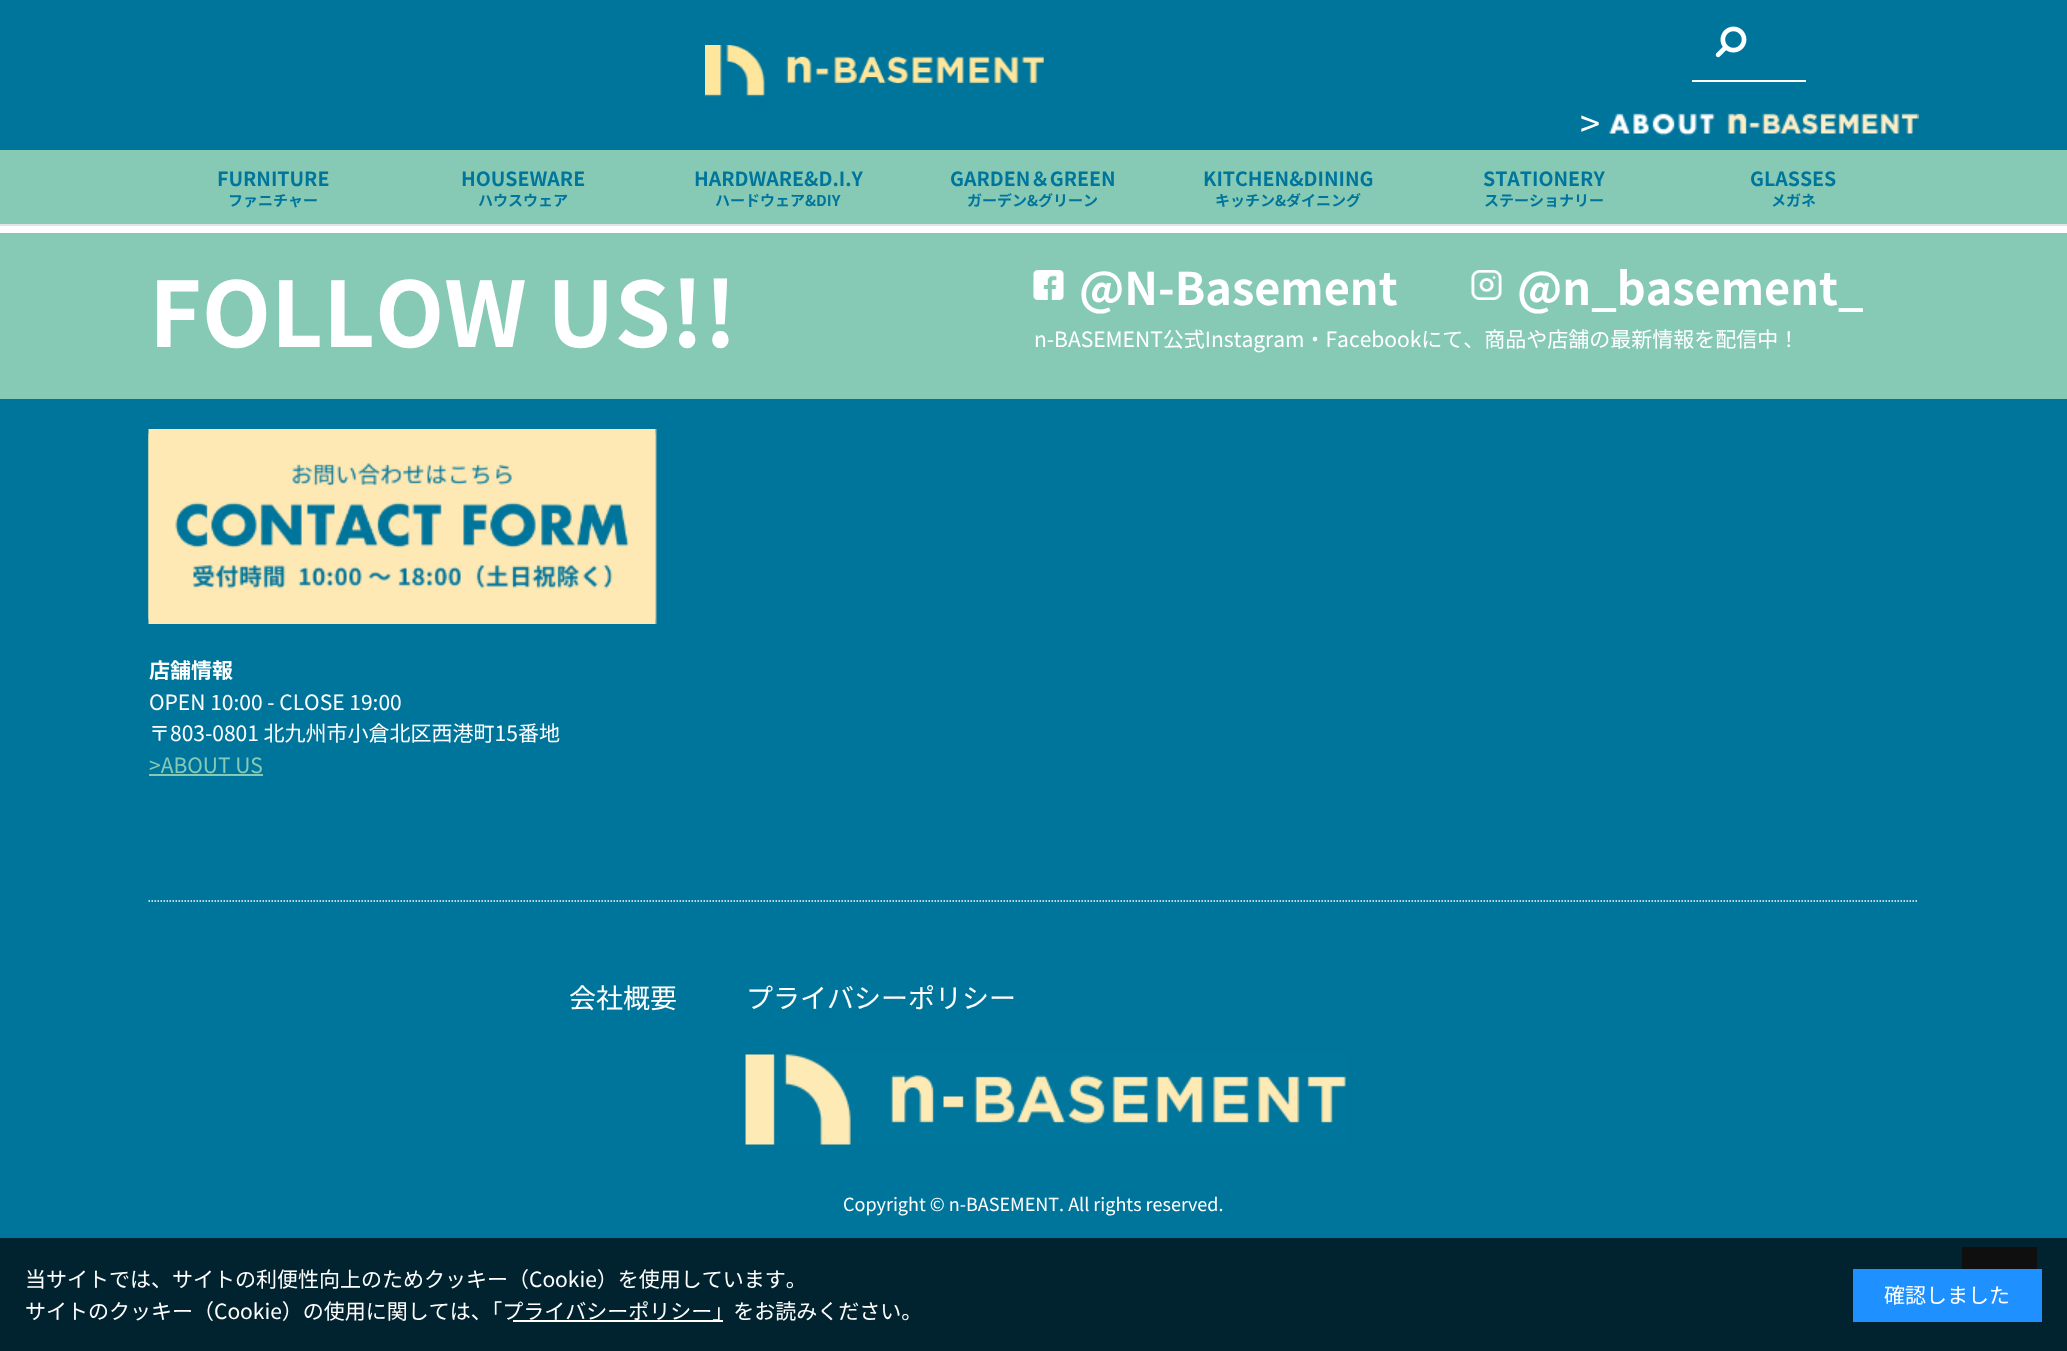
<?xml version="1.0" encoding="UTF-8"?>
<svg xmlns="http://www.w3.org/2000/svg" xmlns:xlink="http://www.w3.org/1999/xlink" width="2067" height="1351">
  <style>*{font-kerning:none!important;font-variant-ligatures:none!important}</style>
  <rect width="100%" height="100%" fill="#ffffff" />
  <rect width="2067" height="150" fill="#00759c" />
  <image x="705" y="45" width="339" height="52" xlink:href="image1.png" />
  <rect x="1692" y="80" width="114" height="2" fill="#ffffff" />
  <image x="1715" y="26" width="32" height="32" xlink:href="image2.png" />
  <image x="1609" y="113" width="310" height="23" xlink:href="image3.png" />
  <rect y="150" width="2067" height="74" fill="#86cab6" />
  <rect y="224" width="2067" height="2" fill="#e4e4e4" />
  <rect y="399" width="2067" height="839" fill="#00759c" />
  <rect y="1238" width="2067" height="113" fill="#00232f" />
  <rect y="233" width="2067" height="166" fill="#86cab6" />
  <image x="1033" y="270" width="31" height="30" xlink:href="image4.png" />
  <image x="1471" y="270" width="31" height="30" xlink:href="image5.png" />
  <image x="148" y="429" width="509" height="195" xlink:href="image6.png" />
  <image x="148" y="433" width="508" height="187" xlink:href="image7.png" />
  <rect x="149" y="774" width="114" height="2" fill="#86cab6" />
  <path d="M 148.5 901 h 1770" fill="none" stroke="#ffffff" stroke-width="1.5" stroke-dasharray="1.5 1.5" />
  <image x="745" y="1054" width="601" height="91" xlink:href="image8.png" />
  <rect x="1962" y="1247" width="75" height="22" fill="#0f0f0f" />
  <rect x="513" y="1320" width="210" height="2" fill="#ffffff" />
  <rect x="1853" y="1269" width="189" height="53" fill="#1e90ff" />
  <text x="1580" y="137" style="font-family: Noto Sans JP; font-size: 36px; fill: #ffffff">&gt;</text>
  <text x="217" y="186" style="font-family: Noto Sans JP; font-size: 19.5px; font-weight: bold; fill: #00759c">FURNITURE</text>
  <text x="228" y="206" style="font-family: Noto Sans JP; font-size: 15px; font-weight: bold; fill: #00759c">ファニチャー</text>
  <text x="461" y="186" style="font-family: Noto Sans JP; font-size: 19.5px; font-weight: bold; fill: #00759c">HOUSEWARE</text>
  <text x="478" y="206" style="font-family: Noto Sans JP; font-size: 15px; font-weight: bold; fill: #00759c">ハウスウェア</text>
  <text x="694" y="186" style="font-family: Noto Sans JP; font-size: 19.5px; font-weight: bold; fill: #00759c">HARDWARE&amp;D.I.Y</text>
  <text x="715" y="206" style="font-family: Noto Sans JP; font-size: 15px; font-weight: bold; fill: #00759c">ハードウェア&amp;DIY</text>
  <text x="950" y="186" style="font-family: Noto Sans JP; font-size: 19.5px; font-weight: bold; fill: #00759c">GARDEN＆GREEN</text>
  <text x="967" y="206" style="font-family: Noto Sans JP; font-size: 15px; font-weight: bold; fill: #00759c">ガーデン&amp;グリーン</text>
  <text x="1203" y="186" style="font-family: Noto Sans JP; font-size: 19.5px; font-weight: bold; fill: #00759c">KITCHEN&amp;DINING</text>
  <text x="1215" y="206" style="font-family: Noto Sans JP; font-size: 15px; font-weight: bold; fill: #00759c">キッチン&amp;ダイニング</text>
  <text x="1483" y="186" style="font-family: Noto Sans JP; font-size: 19.5px; font-weight: bold; fill: #00759c">STATIONERY</text>
  <text x="1484" y="206" style="font-family: Noto Sans JP; font-size: 15px; font-weight: bold; fill: #00759c">ステーショナリー</text>
  <text x="1750" y="186" style="font-family: Noto Sans JP; font-size: 19.5px; font-weight: bold; fill: #00759c">GLASSES</text>
  <text x="1771" y="206" style="font-family: Noto Sans JP; font-size: 15px; font-weight: bold; fill: #00759c">メガネ</text>
  <text x="149" y="347" style="font-family: Noto Sans JP; font-size: 90px; font-weight: bold; fill: #ffffff">FOLLOW US!!</text>
  <text x="1079" y="305" style="font-family: Noto Sans JP; font-size: 45px; font-weight: bold; fill: #ffffff">@N-Basement</text>
  <text x="1517" y="305" style="font-family: Noto Sans JP; font-size: 45px; font-weight: bold; fill: #ffffff">@n_basement_</text>
  <text x="1034" y="347" style="font-family: Noto Sans JP; font-size: 21px; fill: #ffffff">n-BASEMENT公式Instagram・Facebookにて、商品や店舗の最新情報を配信中！</text>
  <text x="149" y="678" style="font-family: Noto Sans JP; font-size: 21px; font-weight: bold; fill: #ffffff">店舗情報</text>
  <text x="149" y="710" style="font-family: Noto Sans JP; font-size: 21px; fill: #ffffff">OPEN 10:00 - CLOSE 19:00</text>
  <text x="149" y="741" style="font-family: Noto Sans JP; font-size: 21px; fill: #ffffff">〒803-0801 北九州市小倉北区西港町15番地</text>
  <text x="149" y="773" style="font-family: Noto Sans JP; font-size: 21px; fill: #86cab6">&gt;ABOUT US</text>
  <text x="569" y="1008" style="font-family: Noto Sans JP; font-size: 27px; fill: #ffffff">会社概要</text>
  <text x="746" y="1008" style="font-family: Noto Sans JP; font-size: 27px; fill: #ffffff">プライバシーポリシー</text>
  <text x="843" y="1211" style="font-family: Noto Sans JP; font-size: 18px; fill: #ffffff">Copyright © n-BASEMENT. All rights reserved.</text>
  <text x="25" y="1287" style="font-family: Noto Sans JP; font-size: 21px; fill: #ffffff">当サイトでは、サイトの利便性向上のためクッキー（Cookie）を使用しています。</text>
  <text x="25" y="1319" style="font-family: Noto Sans JP; font-size: 21px; fill: #ffffff">サイトのクッキー（Cookie）の使用に関しては、「プライバシーポリシー」をお読みください。</text>
  <text x="1884" y="1303" style="font-family: Noto Sans JP; font-size: 21px; fill: #ffffff">確認しました</text>
</svg>
